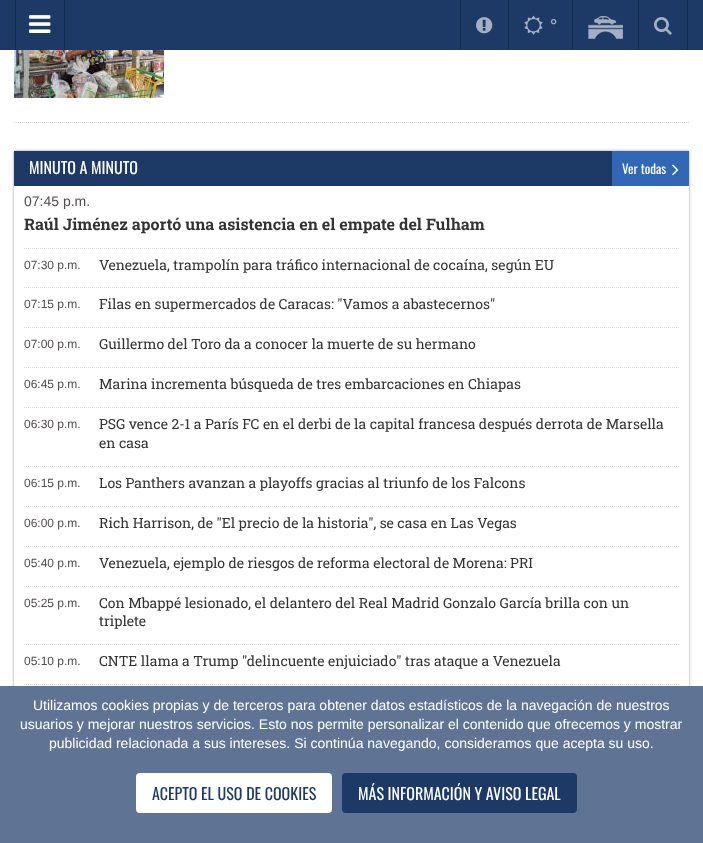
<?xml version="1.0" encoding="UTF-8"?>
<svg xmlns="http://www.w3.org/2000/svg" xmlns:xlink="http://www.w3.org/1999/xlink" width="703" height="843">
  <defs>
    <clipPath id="clip1"><path d="M 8 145 h 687 v 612 h -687 z m 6 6 h 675 v 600 h -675 z" clip-rule="evenodd" /></clipPath>
  </defs>
  <rect width="100%" height="100%" fill="#ffffff" />
  <rect width="703" height="50" fill="#1c3a65" />
  <rect x="64" width="1" height="50" fill="#142b4e" />
  <rect x="15" width="1" height="50" fill="#142b4e" />
  <image x="29" y="15" width="22" height="18" xlink:href="image1.png" />
  <rect x="460" width="1" height="50" fill="#142b4e" />
  <rect x="508" width="1" height="50" fill="#142b4e" />
  <image x="476" y="17" width="17" height="17" xlink:href="image2.png" />
  <rect x="572" width="1" height="50" fill="#142b4e" />
  <image x="524" y="15" width="19" height="20" xlink:href="image3.png" />
  <rect x="638" width="1" height="50" fill="#142b4e" />
  <image x="588" y="16" width="35" height="23" xlink:href="image4.png" />
  <rect x="687" width="1" height="50" fill="#142b4e" />
  <image x="654" y="17" width="18" height="18" xlink:href="image5.png" />
  <path d="M 14 122.5 h 675" fill="none" stroke="#d3d4d7" stroke-dasharray="1 1" />
  <image x="14" y="50" width="150" height="48" xlink:href="image6.png" />
  <g clip-path="url(#clip1)">
    <rect x="14" y="151" width="675" height="600" fill="#000000" fill-opacity="0.4" filter="blur(1.5px)" />
  </g>
  <rect x="14" y="151" width="598" height="35" fill="#1c3a65" />
  <rect x="612" y="151" width="77" height="35" fill="#3167b4" />
  <image x="672" y="164" width="7" height="12" xlink:href="image7.png" />
  <path d="M 24 248.5 h 655" fill="none" stroke="#dddddd" stroke-dasharray="1 1" />
  <path d="M 24 287.5 h 655" fill="none" stroke="#dddddd" stroke-dasharray="1 1" />
  <path d="M 24 327.5 h 655" fill="none" stroke="#dddddd" stroke-dasharray="1 1" />
  <path d="M 24 367.5 h 655" fill="none" stroke="#dddddd" stroke-dasharray="1 1" />
  <path d="M 24 407.5 h 655" fill="none" stroke="#dddddd" stroke-dasharray="1 1" />
  <path d="M 24 466.5 h 655" fill="none" stroke="#dddddd" stroke-dasharray="1 1" />
  <path d="M 24 506.5 h 655" fill="none" stroke="#dddddd" stroke-dasharray="1 1" />
  <path d="M 24 546.5 h 655" fill="none" stroke="#dddddd" stroke-dasharray="1 1" />
  <path d="M 24 586.5 h 655" fill="none" stroke="#dddddd" stroke-dasharray="1 1" />
  <path d="M 24 644.5 h 655" fill="none" stroke="#dddddd" stroke-dasharray="1 1" />
  <path d="M 24 684.5 h 655" fill="none" stroke="#dddddd" stroke-dasharray="1 1" />
  <rect y="686" width="703" height="157" fill="#5f7494" />
  <rect x="136" y="773" width="196" height="40" rx="4" fill="#ffffff" />
  <rect x="342" y="773" width="235" height="40" rx="4" fill="#1c3a65" />
  <text x="550" y="32" style="font-family: Oswald; font-size: 16px; fill: #a4b0c1">°</text>
  <text x="29" y="174" style="font-family: Oswald; font-size: 16px; fill: #ffffff">MINUTO A MINUTO</text>
  <text x="622" y="174" style="font-family: Oswald; font-size: 13px; fill: #ffffff">Ver todas</text>
  <text x="24" y="206" style="font-family: Liberation Sans; font-size: 14px; fill: #514b4b">07:45 p.m.</text>
  <text x="24" y="230" style="font-family: Roboto Slab; font-size: 16px; font-weight: bold; fill: #333333">Raúl Jiménez aportó una asistencia en el empate del Fulham</text>
  <text x="24" y="269" style="font-family: Liberation Sans; font-size: 12px; fill: #514b4b">07:30 p.m.</text>
  <text x="99" y="270" style="font-family: Roboto Slab; font-size: 14px; fill: #333333">Venezuela, trampolín para tráfico internacional de cocaína, según EU</text>
  <text x="24" y="308" style="font-family: Liberation Sans; font-size: 12px; fill: #514b4b">07:15 p.m.</text>
  <text x="99" y="309" style="font-family: Roboto Slab; font-size: 14px; fill: #333333">Filas en supermercados de Caracas: "Vamos a abastecernos"</text>
  <text x="24" y="348" style="font-family: Liberation Sans; font-size: 12px; fill: #514b4b">07:00 p.m.</text>
  <text x="99" y="349" style="font-family: Roboto Slab; font-size: 14px; fill: #333333">Guillermo del Toro da a conocer la muerte de su hermano</text>
  <text x="24" y="388" style="font-family: Liberation Sans; font-size: 12px; fill: #514b4b">06:45 p.m.</text>
  <text x="99" y="389" style="font-family: Roboto Slab; font-size: 14px; fill: #333333">Marina incrementa búsqueda de tres embarcaciones en Chiapas</text>
  <text x="24" y="428" style="font-family: Liberation Sans; font-size: 12px; fill: #514b4b">06:30 p.m.</text>
  <text x="99" y="429" style="font-family: Roboto Slab; font-size: 14px; fill: #333333">PSG vence 2-1 a París FC en el derbi de la capital francesa después derrota de Marsella</text>
  <text x="99" y="448" style="font-family: Roboto Slab; font-size: 14px; fill: #333333">en casa</text>
  <text x="24" y="487" style="font-family: Liberation Sans; font-size: 12px; fill: #514b4b">06:15 p.m.</text>
  <text x="99" y="488" style="font-family: Roboto Slab; font-size: 14px; fill: #333333">Los Panthers avanzan a playoffs gracias al triunfo de los Falcons</text>
  <text x="24" y="527" style="font-family: Liberation Sans; font-size: 12px; fill: #514b4b">06:00 p.m.</text>
  <text x="99" y="528" style="font-family: Roboto Slab; font-size: 14px; fill: #333333">Rich Harrison, de "El precio de la historia", se casa en Las Vegas</text>
  <text x="24" y="567" style="font-family: Liberation Sans; font-size: 12px; fill: #514b4b">05:40 p.m.</text>
  <text x="99" y="568" style="font-family: Roboto Slab; font-size: 14px; fill: #333333">Venezuela, ejemplo de riesgos de reforma electoral de Morena: PRI</text>
  <text x="24" y="607" style="font-family: Liberation Sans; font-size: 12px; fill: #514b4b">05:25 p.m.</text>
  <text x="99" y="608" style="font-family: Roboto Slab; font-size: 14px; fill: #333333">Con Mbappé lesionado, el delantero del Real Madrid Gonzalo García brilla con un</text>
  <text x="99" y="626" style="font-family: Roboto Slab; font-size: 14px; fill: #333333">triplete</text>
  <text x="24" y="665" style="font-family: Liberation Sans; font-size: 12px; fill: #514b4b">05:10 p.m.</text>
  <text x="99" y="666" style="font-family: Roboto Slab; font-size: 14px; fill: #333333">CNTE llama a Trump "delincuente enjuiciado" tras ataque a Venezuela</text>
  <text x="33" y="710" style="font-family: Liberation Sans; font-size: 14px; fill: #ffffff">Utilizamos cookies propias y de terceros para obtener datos estadísticos de la navegación de nuestros</text>
  <text x="20" y="729" style="font-family: Liberation Sans; font-size: 14px; fill: #ffffff">usuarios y mejorar nuestros servicios. Esto nos permite personalizar el contenido que ofrecemos y mostrar</text>
  <text x="49" y="748" style="font-family: Liberation Sans; font-size: 14px; fill: #ffffff">publicidad relacionada a sus intereses. Si continúa navegando, consideramos que acepta su uso.</text>
  <text x="152" y="800" style="font-family: Oswald; font-size: 16px; fill: #1c3a65">ACEPTO EL USO DE COOKIES</text>
  <text x="358" y="800" style="font-family: Oswald; font-size: 16px; fill: #ffffff">MÁS INFORMACIÓN Y AVISO LEGAL</text>
</svg>
